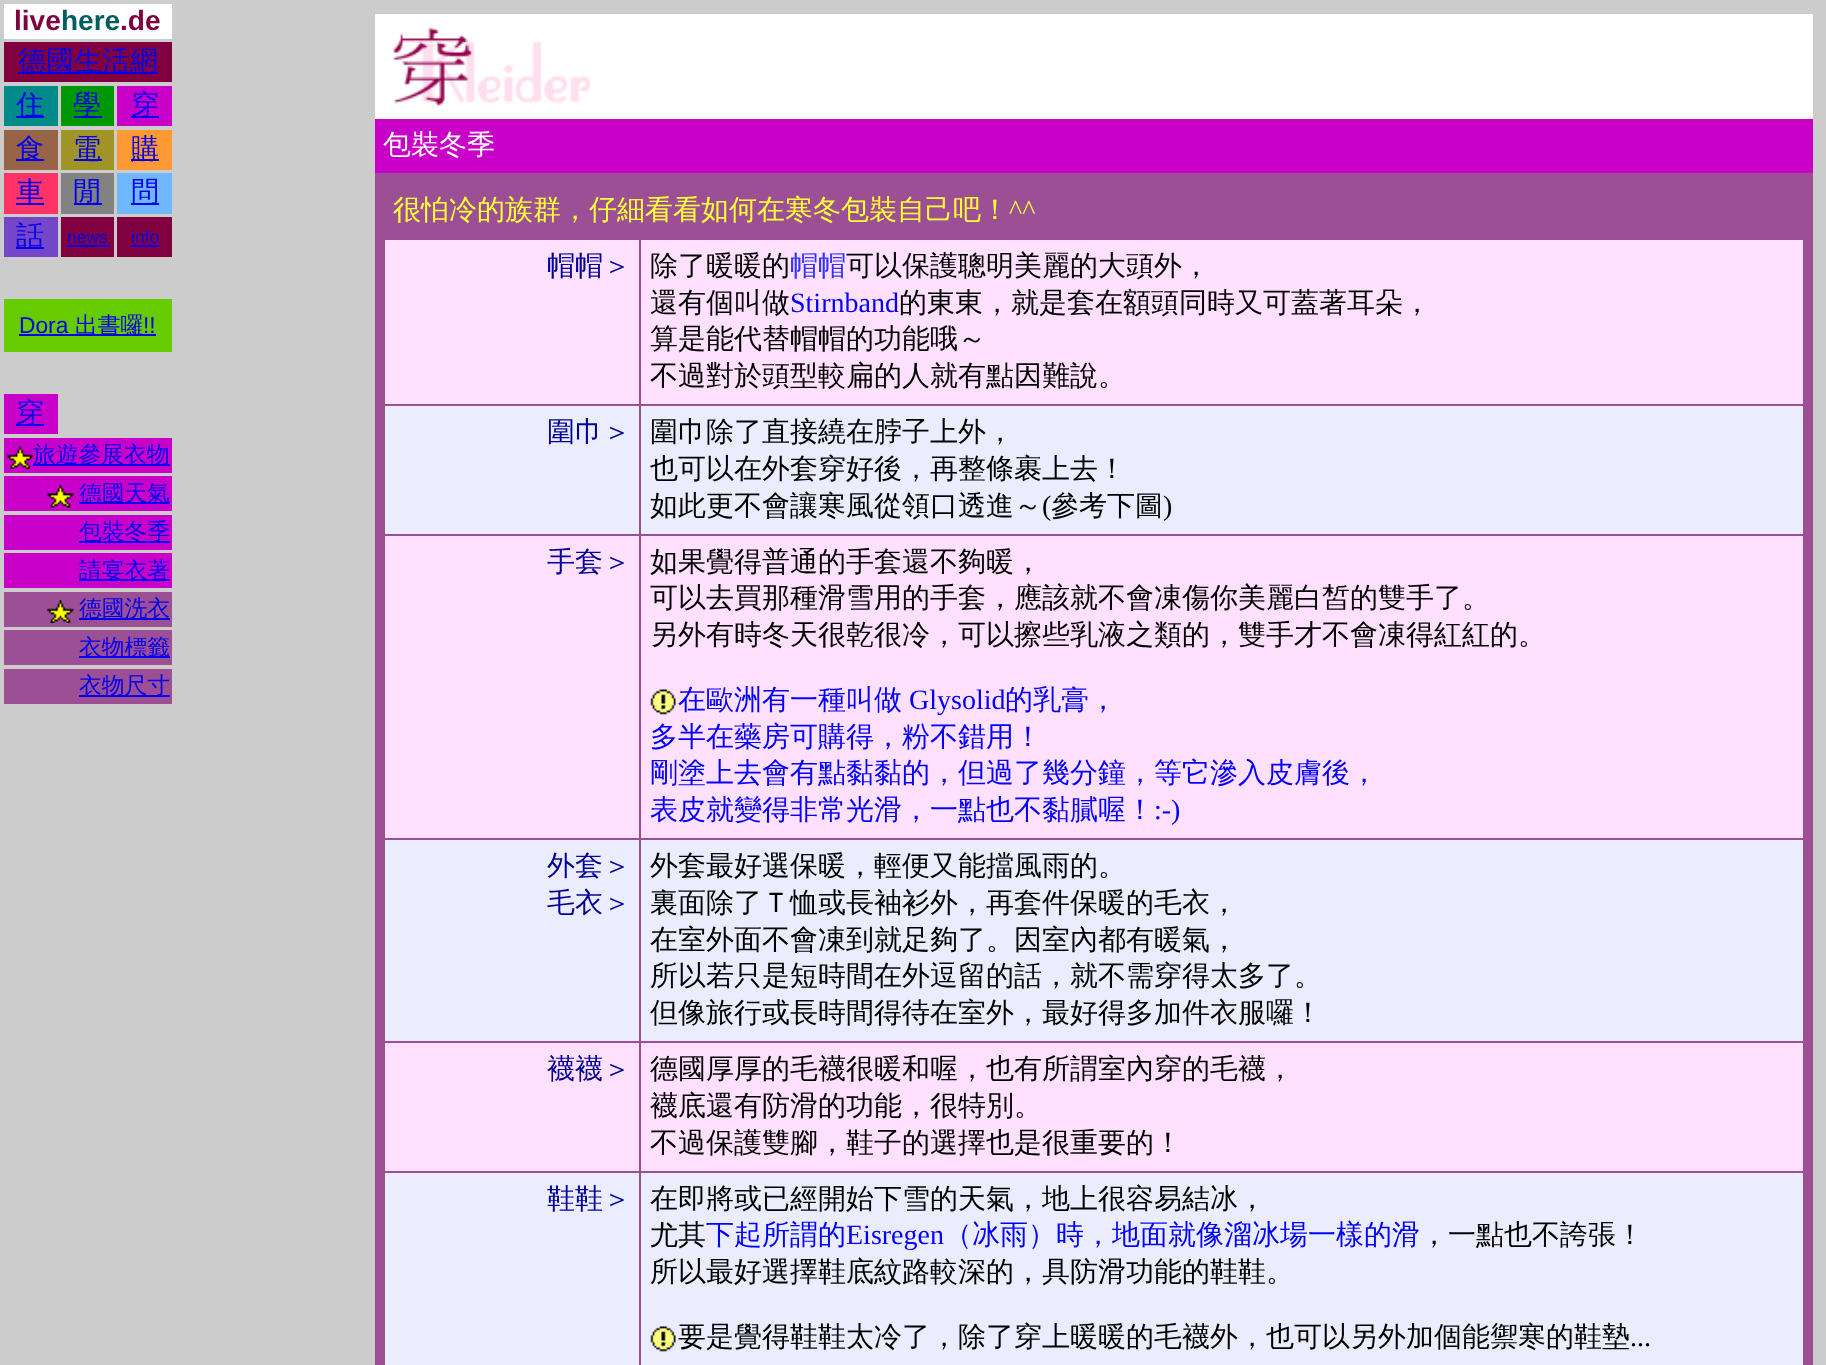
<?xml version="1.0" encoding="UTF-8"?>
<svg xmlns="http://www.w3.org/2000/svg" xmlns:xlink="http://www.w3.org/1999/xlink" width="1826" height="1365">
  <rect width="100%" height="100%" fill="#cccccc" />
  <rect x="4" y="4" width="168" height="35" fill="#ffffff" />
  <rect x="4" y="42" width="168" height="40" fill="#800040" />
  <rect x="18" y="72" width="140" height="2" fill="#0000ee" />
  <rect x="4" y="86" width="54" height="40" fill="#008a8a" />
  <rect x="16" y="116" width="28" height="2" fill="#0000ee" />
  <rect x="61" y="86" width="53" height="40" fill="#009800" />
  <rect x="74" y="116" width="28" height="2" fill="#0000ee" />
  <rect x="117" y="86" width="55" height="40" fill="#c800c8" />
  <rect x="131" y="116" width="28" height="2" fill="#0000ee" />
  <rect x="4" y="130" width="54" height="40" fill="#986448" />
  <rect x="16" y="159" width="28" height="2" fill="#0000ee" />
  <rect x="61" y="130" width="53" height="40" fill="#a09428" />
  <rect x="74" y="159" width="28" height="2" fill="#0000ee" />
  <rect x="117" y="130" width="55" height="40" fill="#ff9933" />
  <rect x="131" y="159" width="28" height="2" fill="#0000ee" />
  <rect x="4" y="173" width="54" height="41" fill="#ff3366" />
  <rect x="16" y="203" width="28" height="2" fill="#0000ee" />
  <rect x="61" y="173" width="53" height="41" fill="#828282" />
  <rect x="74" y="203" width="28" height="2" fill="#0000ee" />
  <rect x="117" y="173" width="55" height="41" fill="#6fb7ff" />
  <rect x="131" y="203" width="28" height="2" fill="#0000ee" />
  <rect x="4" y="217" width="54" height="40" fill="#7446c8" />
  <rect x="16" y="247" width="28" height="2" fill="#0000ee" />
  <rect x="61" y="217" width="53" height="40" fill="#800040" />
  <rect x="67" y="245" width="42" height="2" fill="#0000ee" />
  <rect x="117" y="217" width="55" height="40" fill="#800040" />
  <rect x="131" y="245" width="28" height="2" fill="#0000ee" />
  <rect x="4" y="299" width="168" height="53" fill="#66cc00" />
  <rect x="19" y="334" width="137" height="2" fill="#0000ee" />
  <rect x="4" y="394" width="54" height="40" fill="#c800c8" />
  <rect x="16" y="424" width="28" height="2" fill="#0000ee" />
  <rect x="4" y="438" width="168" height="35" fill="#c800c8" />
  <image x="7" y="446" width="27" height="23" xlink:href="image1.png" />
  <rect x="33" y="464" width="137" height="2" fill="#0000ee" />
  <rect x="4" y="476" width="168" height="35" fill="#c800c8" />
  <image x="47" y="484" width="27" height="24" xlink:href="image2.png" />
  <rect x="79" y="502" width="91" height="2" fill="#0000ee" />
  <rect x="4" y="515" width="168" height="35" fill="#c800c8" />
  <rect x="79" y="541" width="91" height="2" fill="#0000ee" />
  <rect x="4" y="553" width="168" height="35" fill="#c800c8" />
  <rect x="79" y="579" width="91" height="2" fill="#0000ee" />
  <rect x="4" y="592" width="168" height="35" fill="#9d4f96" />
  <image x="47" y="600" width="27" height="23" xlink:href="image3.png" />
  <rect x="79" y="618" width="91" height="2" fill="#0000ee" />
  <rect x="4" y="630" width="168" height="35" fill="#9d4f96" />
  <rect x="79" y="656" width="91" height="2" fill="#0000ee" />
  <rect x="4" y="669" width="168" height="35" fill="#9d4f96" />
  <rect x="79" y="695" width="91" height="2" fill="#0000ee" />
  <rect x="375" y="14" width="1438" height="105" fill="#ffffff" />
  <image x="393" y="27" width="198" height="79" xlink:href="image4.png" />
  <rect x="375" y="119" width="1438" height="54" fill="#c800c8" />
  <rect x="375" y="173" width="1438" height="1192" fill="#9d4f96" />
  <rect x="385" y="240" width="254" height="164" fill="#ffe1ff" />
  <rect x="641" y="240" width="1162" height="164" fill="#ffe0ff" />
  <rect x="385" y="406" width="254" height="128" fill="#ececff" />
  <rect x="641" y="406" width="1162" height="128" fill="#ececff" />
  <rect x="385" y="536" width="254" height="302" fill="#ffe1ff" />
  <rect x="641" y="536" width="1162" height="302" fill="#ffe0ff" />
  <image x="650" y="689" width="26" height="26" xlink:href="image5.png" />
  <rect x="385" y="840" width="254" height="201" fill="#ececff" />
  <rect x="641" y="840" width="1162" height="201" fill="#ececff" />
  <rect x="385" y="1043" width="254" height="128" fill="#ffe1ff" />
  <rect x="641" y="1043" width="1162" height="128" fill="#ffe0ff" />
  <rect x="385" y="1173" width="254" height="192" fill="#ececff" />
  <rect x="641" y="1173" width="1162" height="192" fill="#ececff" />
  <image x="650" y="1326" width="26" height="26" xlink:href="image6.png" />
  <text x="14" y="30" style="font-family: Liberation Sans; font-size: 28px; font-weight: bold; fill: #800040">live</text>
  <text x="61" y="30" style="font-family: Liberation Sans; font-size: 28px; font-weight: bold; fill: #005e5e">here</text>
  <text x="120" y="30" style="font-family: Liberation Sans; font-size: 28px; font-weight: bold; fill: #800040">.de</text>
  <text x="18" y="70" style="font-family: WenQuanYi Zen Hei; font-size: 28px; font-weight: 500; fill: #0000ee">德國生活網</text>
  <text x="16" y="114" style="font-family: WenQuanYi Zen Hei; font-size: 28px; font-weight: 500; fill: #0000ee">住</text>
  <text x="73" y="114" style="font-family: WenQuanYi Zen Hei; font-size: 28px; font-weight: 500; fill: #0000ee">學</text>
  <text x="131" y="114" style="font-family: WenQuanYi Zen Hei; font-size: 28px; font-weight: 500; fill: #0000ee">穿</text>
  <text x="16" y="158" style="font-family: WenQuanYi Zen Hei; font-size: 28px; font-weight: 500; fill: #0000ee">食</text>
  <text x="73" y="158" style="font-family: WenQuanYi Zen Hei; font-size: 28px; font-weight: 500; fill: #0000ee">電</text>
  <text x="131" y="158" style="font-family: WenQuanYi Zen Hei; font-size: 28px; font-weight: 500; fill: #0000ee">購</text>
  <text x="16" y="201" style="font-family: WenQuanYi Zen Hei; font-size: 28px; font-weight: 500; fill: #0000ee">車</text>
  <text x="73" y="201" style="font-family: WenQuanYi Zen Hei; font-size: 28px; font-weight: 500; fill: #0000ee">閒</text>
  <text x="131" y="201" style="font-family: WenQuanYi Zen Hei; font-size: 28px; font-weight: 500; fill: #0000ee">問</text>
  <text x="16" y="245" style="font-family: WenQuanYi Zen Hei; font-size: 28px; font-weight: 500; fill: #0000ee">話</text>
  <text x="67" y="243" style="font-family: Liberation Sans; font-size: 17.5px; fill: #0000ee">news</text>
  <text x="131" y="243" style="font-family: Liberation Sans; font-size: 17.5px; fill: #0000ee">info</text>
  <text x="19" y="333" style="font-family: Liberation Sans; font-size: 22.75px; fill: #0000ee">Dora</text>
  <text x="75" y="333" style="font-family: WenQuanYi Zen Hei; font-size: 22.75px; font-weight: 500; fill: #0000ee">出書囉</text>
  <text x="143" y="333" style="font-family: Liberation Sans; font-size: 22.75px; fill: #0000ee">!!</text>
  <text x="16" y="422" style="font-family: WenQuanYi Zen Hei; font-size: 28px; font-weight: 500; fill: #0000ee">穿</text>
  <text x="33" y="462" style="font-family: WenQuanYi Zen Hei; font-size: 22.75px; font-weight: 500; fill: #0000ee">旅遊參展衣物</text>
  <text x="79" y="501" style="font-family: WenQuanYi Zen Hei; font-size: 22.75px; font-weight: 500; fill: #0000ee">德國天氣</text>
  <text x="79" y="539" style="font-family: WenQuanYi Zen Hei; font-size: 22.75px; font-weight: 500; fill: #0000ee">包裝冬季</text>
  <text x="79" y="578" style="font-family: WenQuanYi Zen Hei; font-size: 22.75px; font-weight: 500; fill: #0000ee">請宴衣著</text>
  <text x="79" y="616" style="font-family: WenQuanYi Zen Hei; font-size: 22.75px; font-weight: 500; fill: #0000ee">德國洗衣</text>
  <text x="79" y="655" style="font-family: WenQuanYi Zen Hei; font-size: 22.75px; font-weight: 500; fill: #0000ee">衣物標籤</text>
  <text x="79" y="693" style="font-family: WenQuanYi Zen Hei; font-size: 22.75px; font-weight: 500; fill: #0000ee">衣物尺寸</text>
  <text x="383" y="154" style="font-family: WenQuanYi Zen Hei; font-size: 28px; font-weight: 500; fill: #ffffff">包裝冬季</text>
  <text x="393" y="219" style="font-family: WenQuanYi Zen Hei; font-size: 28px; font-weight: 500; fill: #ffff33">很怕冷的族群，仔細看看如何在寒冬包裝自己吧！</text>
  <text x="1009" y="219" style="font-family: Liberation Serif; font-size: 28px; fill: #ffff33">^^</text>
  <text x="547" y="275" style="font-family: WenQuanYi Zen Hei; font-size: 28px; font-weight: 500; fill: #000099">帽帽＞</text>
  <text x="650" y="275" style="font-family: WenQuanYi Zen Hei; font-size: 28px; font-weight: 500; fill: #000000">除了暖暖的</text>
  <text x="790" y="275" style="font-family: WenQuanYi Zen Hei; font-size: 28px; font-weight: 500; fill: #3333ff">帽帽</text>
  <text x="846" y="275" style="font-family: WenQuanYi Zen Hei; font-size: 28px; font-weight: 500; fill: #000000">可以保護聰明美麗的大頭外，</text>
  <text x="650" y="312" style="font-family: WenQuanYi Zen Hei; font-size: 28px; font-weight: 500; fill: #000000">還有個叫做</text>
  <text x="790" y="312" style="font-family: Liberation Serif; font-size: 28px; fill: #0000ff">Stirnband</text>
  <text x="899" y="312" style="font-family: WenQuanYi Zen Hei; font-size: 28px; font-weight: 500; fill: #000000">的東東，就是套在額頭同時又可蓋著耳朵，</text>
  <text x="650" y="348" style="font-family: WenQuanYi Zen Hei; font-size: 28px; font-weight: 500; fill: #000000">算是能代替帽帽的功能哦～</text>
  <text x="650" y="385" style="font-family: WenQuanYi Zen Hei; font-size: 28px; font-weight: 500; fill: #000000">不過對於頭型較扁的人就有點因難說。</text>
  <text x="547" y="441" style="font-family: WenQuanYi Zen Hei; font-size: 28px; font-weight: 500; fill: #000099">圍巾＞</text>
  <text x="650" y="441" style="font-family: WenQuanYi Zen Hei; font-size: 28px; font-weight: 500; fill: #000000">圍巾除了直接繞在脖子上外，</text>
  <text x="650" y="478" style="font-family: WenQuanYi Zen Hei; font-size: 28px; font-weight: 500; fill: #000000">也可以在外套穿好後，再整條裹上去！</text>
  <text x="650" y="515" style="font-family: WenQuanYi Zen Hei; font-size: 28px; font-weight: 500; fill: #000000">如此更不會讓寒風從領口透進～</text>
  <text x="1042" y="515" style="font-family: Liberation Serif; font-size: 28px; fill: #000000">(</text>
  <text x="1051" y="515" style="font-family: WenQuanYi Zen Hei; font-size: 28px; font-weight: 500; fill: #000000">參考下圖</text>
  <text x="1163" y="515" style="font-family: Liberation Serif; font-size: 28px; fill: #000000">)</text>
  <text x="547" y="571" style="font-family: WenQuanYi Zen Hei; font-size: 28px; font-weight: 500; fill: #000099">手套＞</text>
  <text x="650" y="571" style="font-family: WenQuanYi Zen Hei; font-size: 28px; font-weight: 500; fill: #000000">如果覺得普通的手套還不夠暖，</text>
  <text x="650" y="607" style="font-family: WenQuanYi Zen Hei; font-size: 28px; font-weight: 500; fill: #000000">可以去買那種滑雪用的手套，應該就不會凍傷你美麗白皙的雙手了。</text>
  <text x="650" y="644" style="font-family: WenQuanYi Zen Hei; font-size: 28px; font-weight: 500; fill: #000000">另外有時冬天很乾很冷，可以擦些乳液之類的，雙手才不會凍得紅紅的。</text>
  <text x="678" y="709" style="font-family: WenQuanYi Zen Hei; font-size: 28px; font-weight: 500; fill: #0000ff">在歐洲有一種叫做</text>
  <text x="909" y="709" style="font-family: Liberation Serif; font-size: 28px; fill: #0000ff">Glysolid</text>
  <text x="1005" y="709" style="font-family: WenQuanYi Zen Hei; font-size: 28px; font-weight: 500; fill: #0000ff">的乳膏，</text>
  <text x="650" y="746" style="font-family: WenQuanYi Zen Hei; font-size: 28px; font-weight: 500; fill: #0000ff">多半在藥房可購得，粉不錯用！</text>
  <text x="650" y="782" style="font-family: WenQuanYi Zen Hei; font-size: 28px; font-weight: 500; fill: #0000ff">剛塗上去會有點黏黏的，但過了幾分鐘，等它滲入皮膚後，</text>
  <text x="650" y="819" style="font-family: WenQuanYi Zen Hei; font-size: 28px; font-weight: 500; fill: #0000ff">表皮就變得非常光滑，一點也不黏膩喔！</text>
  <text x="1154" y="819" style="font-family: Liberation Serif; font-size: 28px; fill: #0000ff">:-)</text>
  <text x="547" y="875" style="font-family: WenQuanYi Zen Hei; font-size: 28px; font-weight: 500; fill: #000099">外套＞</text>
  <text x="547" y="912" style="font-family: WenQuanYi Zen Hei; font-size: 28px; font-weight: 500; fill: #000099">毛衣＞</text>
  <text x="650" y="875" style="font-family: WenQuanYi Zen Hei; font-size: 28px; font-weight: 500; fill: #000000">外套最好選保暖，輕便又能擋風雨的。</text>
  <text x="650" y="912" style="font-family: WenQuanYi Zen Hei; font-size: 28px; font-weight: 500; fill: #000000">裏面除了Ｔ恤或長袖衫外，再套件保暖的毛衣，</text>
  <text x="650" y="949" style="font-family: WenQuanYi Zen Hei; font-size: 28px; font-weight: 500; fill: #000000">在室外面不會凍到就足夠了。因室內都有暖氣，</text>
  <text x="650" y="985" style="font-family: WenQuanYi Zen Hei; font-size: 28px; font-weight: 500; fill: #000000">所以若只是短時間在外逗留的話，就不需穿得太多了。</text>
  <text x="650" y="1022" style="font-family: WenQuanYi Zen Hei; font-size: 28px; font-weight: 500; fill: #000000">但像旅行或長時間得待在室外，最好得多加件衣服囉！</text>
  <text x="547" y="1078" style="font-family: WenQuanYi Zen Hei; font-size: 28px; font-weight: 500; fill: #000099">襪襪＞</text>
  <text x="650" y="1078" style="font-family: WenQuanYi Zen Hei; font-size: 28px; font-weight: 500; fill: #000000">德國厚厚的毛襪很暖和喔，也有所謂室內穿的毛襪，</text>
  <text x="650" y="1115" style="font-family: WenQuanYi Zen Hei; font-size: 28px; font-weight: 500; fill: #000000">襪底還有防滑的功能，很特別。</text>
  <text x="650" y="1152" style="font-family: WenQuanYi Zen Hei; font-size: 28px; font-weight: 500; fill: #000000">不過保護雙腳，鞋子的選擇也是很重要的！</text>
  <text x="547" y="1208" style="font-family: WenQuanYi Zen Hei; font-size: 28px; font-weight: 500; fill: #000099">鞋鞋＞</text>
  <text x="650" y="1208" style="font-family: WenQuanYi Zen Hei; font-size: 28px; font-weight: 500; fill: #000000">在即將或已經開始下雪的天氣，地上很容易結冰，</text>
  <text x="650" y="1244" style="font-family: WenQuanYi Zen Hei; font-size: 28px; font-weight: 500; fill: #000000">尤其</text>
  <text x="706" y="1244" style="font-family: WenQuanYi Zen Hei; font-size: 28px; font-weight: 500; fill: #0000ff">下起所謂的</text>
  <text x="846" y="1244" style="font-family: Liberation Serif; font-size: 28px; fill: #0000ff">Eisregen</text>
  <text x="944" y="1244" style="font-family: WenQuanYi Zen Hei; font-size: 28px; font-weight: 500; fill: #0000ff">（冰雨）時，地面就像溜冰場一樣的滑</text>
  <text x="1420" y="1244" style="font-family: WenQuanYi Zen Hei; font-size: 28px; font-weight: 500; fill: #000000">，一點也不誇張！</text>
  <text x="650" y="1281" style="font-family: WenQuanYi Zen Hei; font-size: 28px; font-weight: 500; fill: #000000">所以最好選擇鞋底紋路較深的，具防滑功能的鞋鞋。</text>
  <text x="678" y="1346" style="font-family: WenQuanYi Zen Hei; font-size: 28px; font-weight: 500; fill: #000000">要是覺得鞋鞋太冷了，除了穿上暖暖的毛襪外，也可以另外加個能禦寒的鞋墊</text>
  <text x="1630" y="1346" style="font-family: Liberation Serif; font-size: 28px; fill: #000000">...</text>
</svg>
